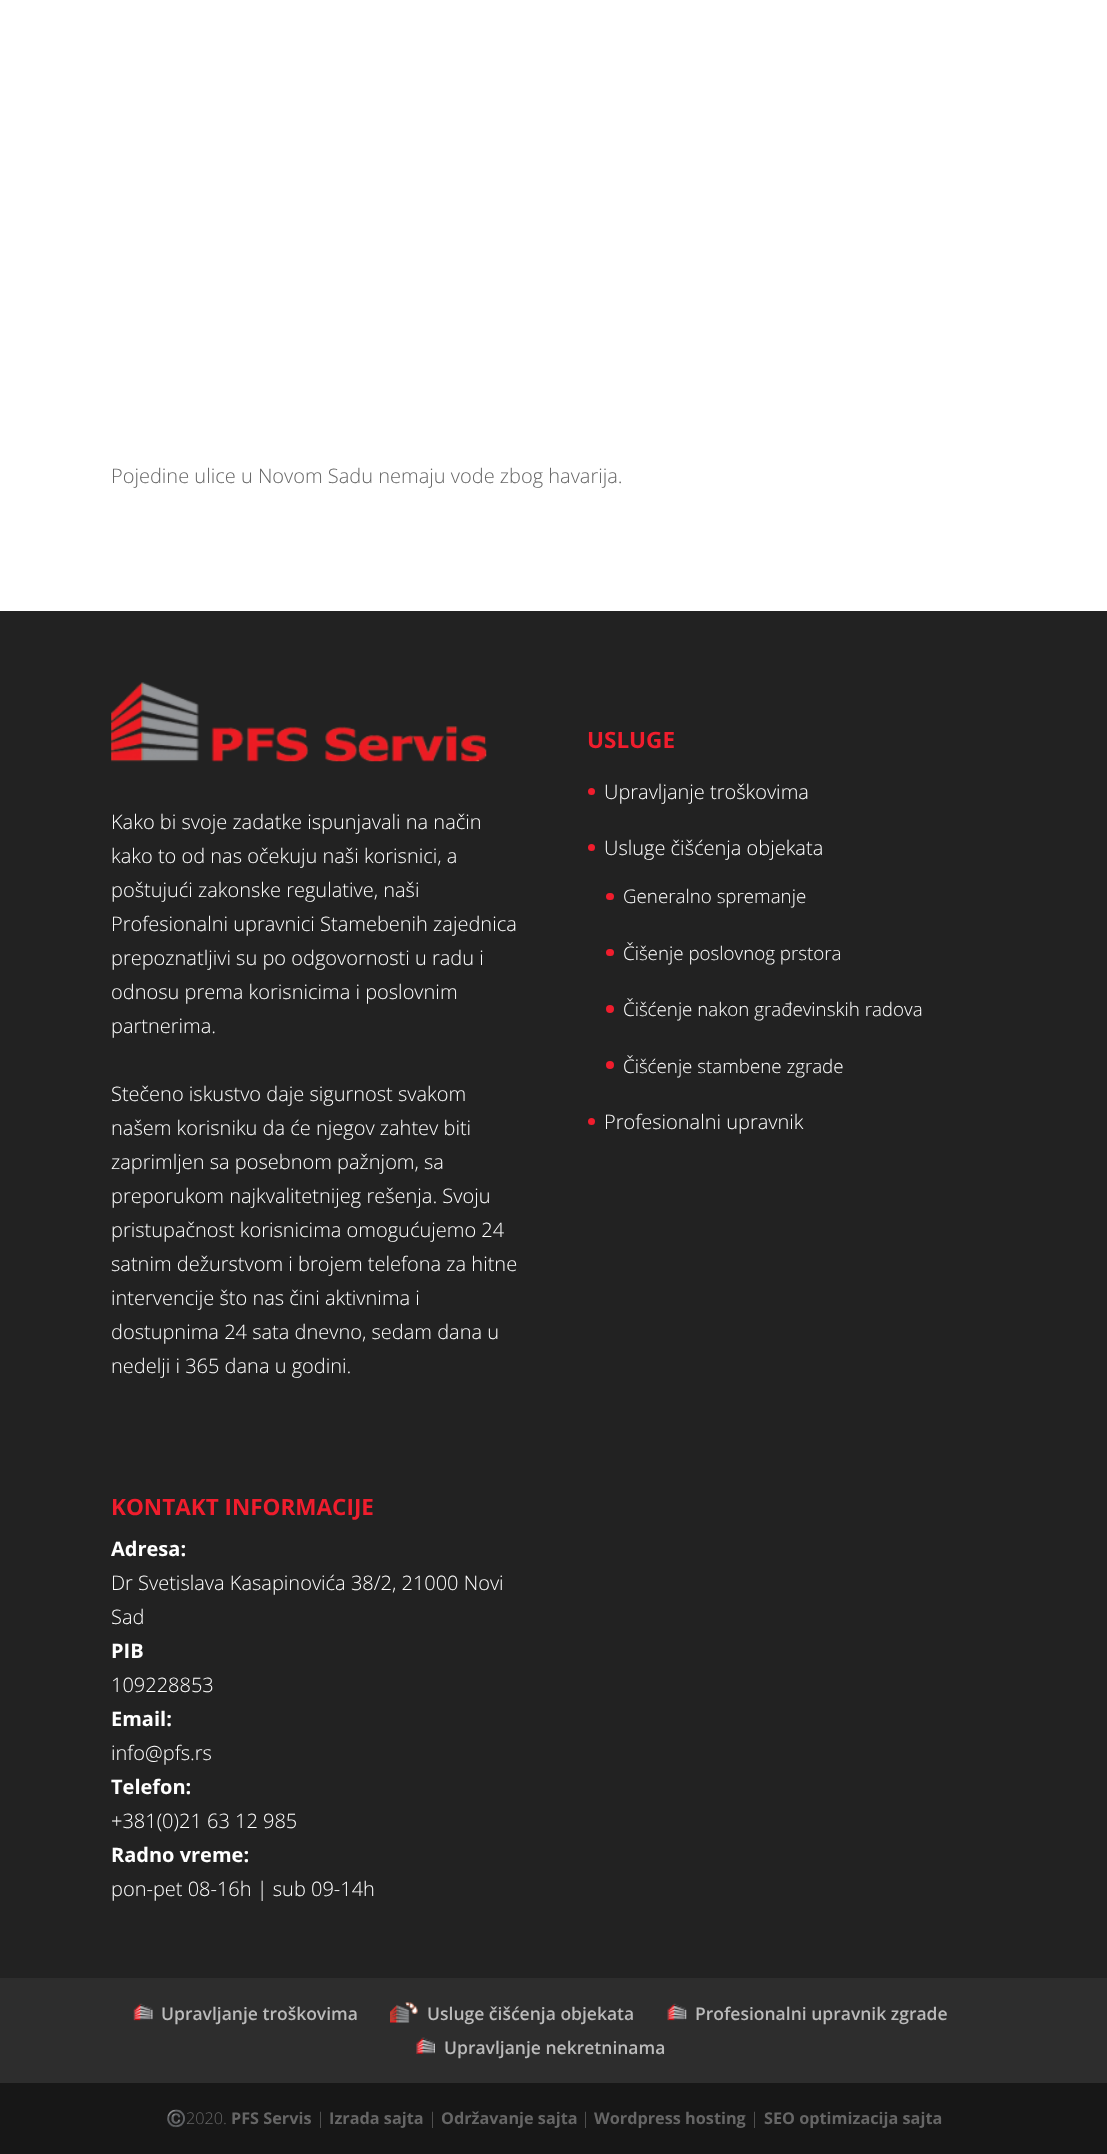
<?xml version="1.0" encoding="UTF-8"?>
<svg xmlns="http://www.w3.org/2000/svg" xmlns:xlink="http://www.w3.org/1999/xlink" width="1107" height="2154">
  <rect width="100%" height="100%" fill="#ffffff" />
  <rect y="611" width="1107" height="1367" fill="#222222" />
  <image x="111" y="682" width="376" height="80" xlink:href="image1.png" />
  <circle cx="591.5" cy="791.5" r="3.5" fill="#f01d2d" />
  <circle cx="591.5" cy="847.5" r="3.5" fill="#f01d2d" />
  <rect x="606" y="893" width="8" height="7" rx="3.5" fill="#f01d2d" />
  <rect x="606" y="949" width="8" height="7" rx="3.5" fill="#f01d2d" />
  <circle cx="610" cy="1009" r="4" fill="#f01d2d" />
  <circle cx="610" cy="1065" r="4" fill="#f01d2d" />
  <circle cx="591.5" cy="1121.5" r="3.5" fill="#f01d2d" />
  <rect y="1978" width="1107" height="105" fill="#2d2d2d" />
  <image x="133" y="2003" width="20" height="18" xlink:href="image2.png" />
  <image x="390" y="2002" width="28" height="21" xlink:href="image3.png" />
  <image x="667" y="2003" width="20" height="18" xlink:href="image4.png" />
  <image x="416" y="2037" width="19" height="17" xlink:href="image5.png" />
  <rect y="2083" width="1107" height="71" fill="#171717" />
  <text x="111" y="483" style="font-family: Open Sans; font-size: 20px; font-weight: 300; fill: #666666">Pojedine ulice u Novom Sadu nemaju vode zbog havarija.</text>
  <text x="111" y="829" style="font-family: Open Sans; font-size: 20px; font-weight: 300; fill: #ffffff">Kako bi svoje zadatke ispunjavali na način</text>
  <text x="111" y="863" style="font-family: Open Sans; font-size: 20px; font-weight: 300; fill: #ffffff">kako to od nas očekuju naši korisnici, a</text>
  <text x="111" y="897" style="font-family: Open Sans; font-size: 20px; font-weight: 300; fill: #ffffff">poštujući zakonske regulative, naši</text>
  <text x="111" y="931" style="font-family: Open Sans; font-size: 20px; font-weight: 300; fill: #ffffff">Profesionalni upravnici Stamebenih zajednica</text>
  <text x="111" y="965" style="font-family: Open Sans; font-size: 20px; font-weight: 300; fill: #ffffff">prepoznatljivi su po odgovornosti u radu i</text>
  <text x="111" y="999" style="font-family: Open Sans; font-size: 20px; font-weight: 300; fill: #ffffff">odnosu prema korisnicima i poslovnim</text>
  <text x="111" y="1033" style="font-family: Open Sans; font-size: 20px; font-weight: 300; fill: #ffffff">partnerima.</text>
  <text x="111" y="1101" style="font-family: Open Sans; font-size: 20px; font-weight: 300; fill: #ffffff">Stečeno iskustvo daje sigurnost svakom</text>
  <text x="111" y="1135" style="font-family: Open Sans; font-size: 20px; font-weight: 300; fill: #ffffff">našem korisniku da će njegov zahtev biti</text>
  <text x="111" y="1169" style="font-family: Open Sans; font-size: 20px; font-weight: 300; fill: #ffffff">zaprimljen sa posebnom pažnjom, sa</text>
  <text x="111" y="1203" style="font-family: Open Sans; font-size: 20px; font-weight: 300; fill: #ffffff">preporukom najkvalitetnijeg rešenja. Svoju</text>
  <text x="111" y="1237" style="font-family: Open Sans; font-size: 20px; font-weight: 300; fill: #ffffff">pristupačnost korisnicima omogućujemo 24</text>
  <text x="111" y="1271" style="font-family: Open Sans; font-size: 20px; font-weight: 300; fill: #ffffff">satnim dežurstvom i brojem telefona za hitne</text>
  <text x="111" y="1305" style="font-family: Open Sans; font-size: 20px; font-weight: 300; fill: #ffffff">intervencije što nas čini aktivnima i</text>
  <text x="111" y="1339" style="font-family: Open Sans; font-size: 20px; font-weight: 300; fill: #ffffff">dostupnima 24 sata dnevno, sedam dana u</text>
  <text x="111" y="1373" style="font-family: Open Sans; font-size: 20px; font-weight: 300; fill: #ffffff">nedelji i 365 dana u godini.</text>
  <text x="587" y="748" style="font-family: Open Sans; font-size: 22.5px; font-weight: bold; fill: #f01d2d">USLUGE</text>
  <text x="604" y="799" style="font-family: Open Sans; font-size: 20px; font-weight: 300; fill: #ffffff">Upravljanje troškovima</text>
  <text x="604" y="855" style="font-family: Open Sans; font-size: 20px; font-weight: 300; fill: #ffffff">Usluge čišćenja objekata</text>
  <text x="623" y="903" style="font-family: Open Sans; font-size: 18.75px; font-weight: 300; fill: #ffffff">Generalno spremanje</text>
  <text x="623" y="960" style="font-family: Open Sans; font-size: 18.75px; font-weight: 300; fill: #ffffff">Čišenje poslovnog prstora</text>
  <text x="623" y="1016" style="font-family: Open Sans; font-size: 18.75px; font-weight: 300; fill: #ffffff">Čišćenje nakon građevinskih radova</text>
  <text x="623" y="1073" style="font-family: Open Sans; font-size: 18.75px; font-weight: 300; fill: #ffffff">Čišćenje stambene zgrade</text>
  <text x="604" y="1129" style="font-family: Open Sans; font-size: 20px; font-weight: 300; fill: #ffffff">Profesionalni upravnik</text>
  <text x="111" y="1515" style="font-family: Open Sans; font-size: 22.5px; font-weight: bold; fill: #f01d2d">KONTAKT INFORMACIJE</text>
  <text x="111" y="1556" style="font-family: Open Sans; font-size: 20px; font-weight: bold; fill: #ffffff">Adresa:</text>
  <text x="111" y="1590" style="font-family: Open Sans; font-size: 20px; font-weight: 300; fill: #ffffff">Dr Svetislava Kasapinovića 38/2, 21000 Novi</text>
  <text x="111" y="1624" style="font-family: Open Sans; font-size: 20px; font-weight: 300; fill: #ffffff">Sad</text>
  <text x="111" y="1658" style="font-family: Open Sans; font-size: 20px; font-weight: bold; fill: #ffffff">PIB</text>
  <text x="111" y="1692" style="font-family: Open Sans; font-size: 20px; font-weight: 300; fill: #ffffff">109228853</text>
  <text x="111" y="1726" style="font-family: Open Sans; font-size: 20px; font-weight: bold; fill: #ffffff">Email:</text>
  <text x="111" y="1760" style="font-family: Open Sans; font-size: 20px; font-weight: 300; fill: #ffffff">info@pfs.rs</text>
  <text x="111" y="1794" style="font-family: Open Sans; font-size: 20px; font-weight: bold; fill: #ffffff">Telefon:</text>
  <text x="111" y="1828" style="font-family: Open Sans; font-size: 20px; font-weight: 300; fill: #ffffff">+381(0)21 63 12 985</text>
  <text x="111" y="1862" style="font-family: Open Sans; font-size: 20px; font-weight: bold; fill: #ffffff">Radno vreme:</text>
  <text x="111" y="1896" style="font-family: Open Sans; font-size: 20px; font-weight: 300; fill: #ffffff">pon-pet 08-16h | sub 09-14h</text>
  <text x="161" y="2020" style="font-family: Open Sans; font-size: 17.5px; font-weight: 600; fill: #bbbbbb">Upravljanje troškovima</text>
  <text x="427" y="2020" style="font-family: Open Sans; font-size: 17.5px; font-weight: 600; fill: #bbbbbb">Usluge čišćenja objekata</text>
  <text x="695" y="2020" style="font-family: Open Sans; font-size: 17.5px; font-weight: 600; fill: #bbbbbb">Profesionalni upravnik zgrade</text>
  <text x="444" y="2054" style="font-family: Open Sans; font-size: 17.5px; font-weight: 600; fill: #bbbbbb">Upravljanje nekretninama</text>
  <text x="166" y="2124" style="font-family: Noto Color Emoji; font-size: 16.25px; fill: #666666">©️</text>
  <text x="186" y="2124" style="font-family: Open Sans; font-size: 16.25px; font-weight: 300; fill: #666666">2020.</text>
  <text x="231" y="2124" style="font-family: Open Sans; font-size: 16.25px; font-weight: bold; fill: #666666">PFS Servis</text>
  <text x="316" y="2124" style="font-family: Open Sans; font-size: 16.25px; font-weight: 300; fill: #666666">|</text>
  <text x="329" y="2124" style="font-family: Open Sans; font-size: 16.25px; font-weight: bold; fill: #666666">Izrada sajta</text>
  <text x="428" y="2124" style="font-family: Open Sans; font-size: 16.25px; font-weight: 300; fill: #666666">|</text>
  <text x="441" y="2124" style="font-family: Open Sans; font-size: 16.25px; font-weight: bold; fill: #666666">Održavanje sajta</text>
  <text x="581" y="2124" style="font-family: Open Sans; font-size: 16.25px; font-weight: 300; fill: #666666">|</text>
  <text x="594" y="2124" style="font-family: Open Sans; font-size: 16.25px; font-weight: bold; fill: #666666">Wordpress hosting</text>
  <text x="750" y="2124" style="font-family: Open Sans; font-size: 16.25px; font-weight: 300; fill: #666666">|</text>
  <text x="764" y="2124" style="font-family: Open Sans; font-size: 16.25px; font-weight: bold; fill: #666666">SEO optimizacija sajta</text>
</svg>
